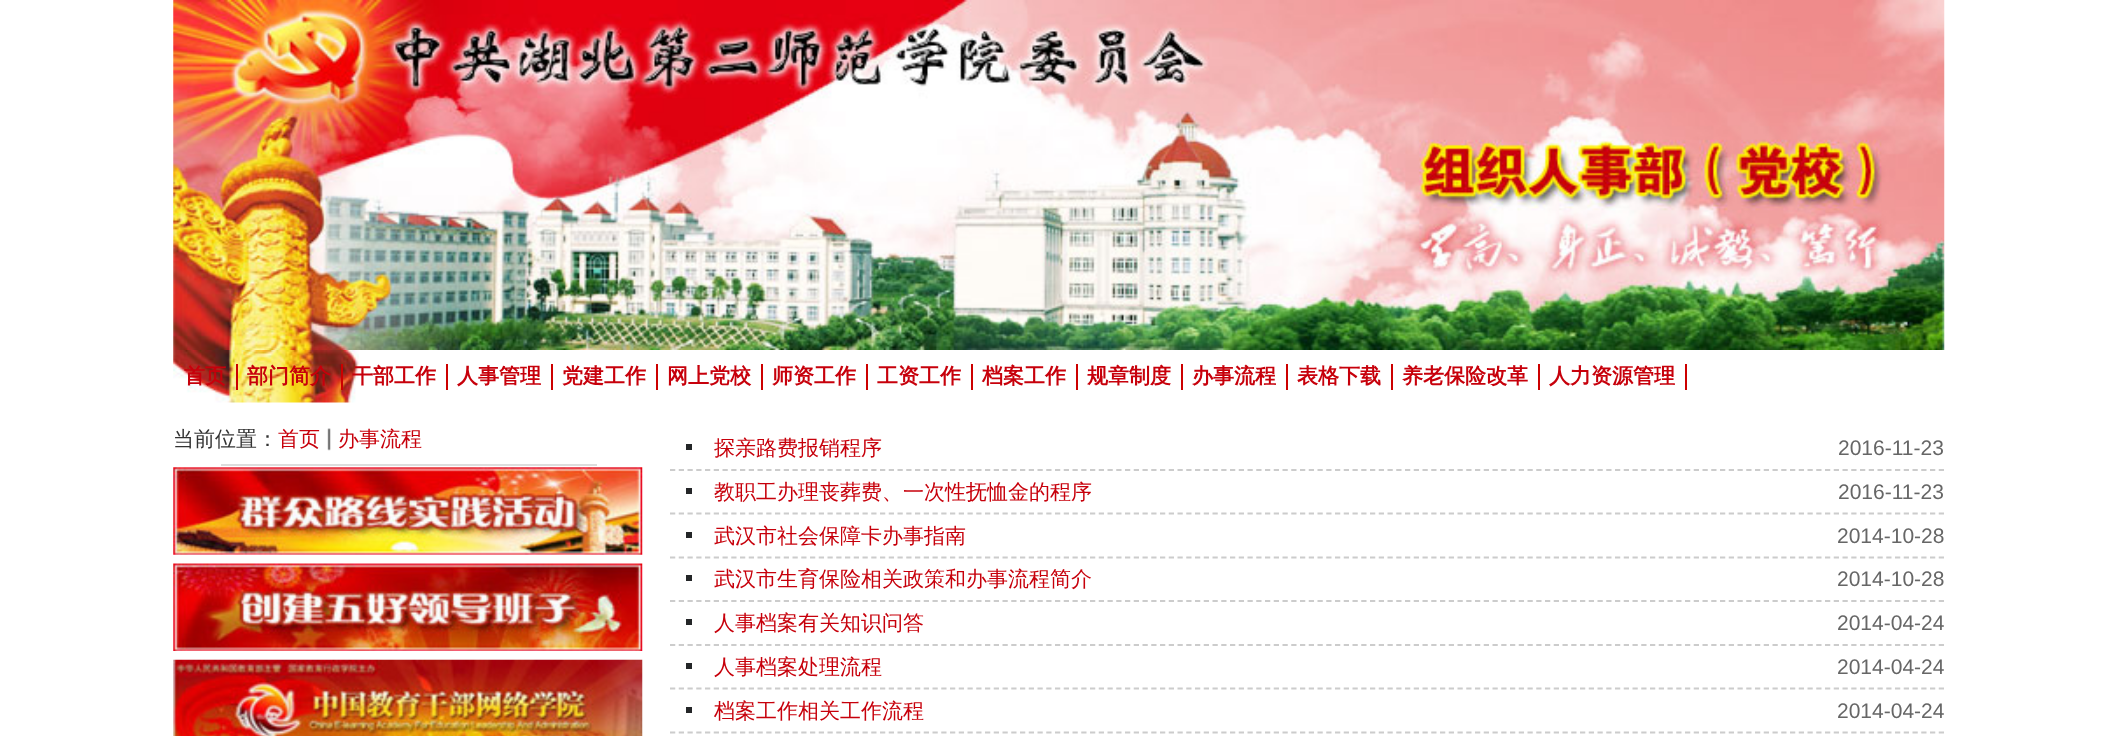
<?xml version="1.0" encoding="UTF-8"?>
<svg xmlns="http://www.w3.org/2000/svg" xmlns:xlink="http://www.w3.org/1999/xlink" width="2117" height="736">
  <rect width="100%" height="100%" fill="#ffffff" />
  <image x="173" y="0" width="1772" height="350" xlink:href="image1.png" />
  <image x="173" y="350" width="186" height="53" xlink:href="image2.png" />
  <rect x="236" y="364" width="2" height="26" fill="#cc0000" />
  <rect x="341" y="364" width="2" height="26" fill="#cc0000" />
  <rect x="446" y="364" width="2" height="26" fill="#cc0000" />
  <rect x="551" y="364" width="2" height="26" fill="#cc0000" />
  <rect x="656" y="364" width="2" height="26" fill="#cc0000" />
  <rect x="761" y="364" width="2" height="26" fill="#cc0000" />
  <rect x="866" y="364" width="2" height="26" fill="#cc0000" />
  <rect x="971" y="364" width="2" height="26" fill="#cc0000" />
  <rect x="1076" y="364" width="2" height="26" fill="#cc0000" />
  <rect x="1181" y="364" width="2" height="26" fill="#cc0000" />
  <rect x="1286" y="364" width="2" height="26" fill="#cc0000" />
  <rect x="1391" y="364" width="2" height="26" fill="#cc0000" />
  <rect x="1538" y="364" width="2" height="26" fill="#cc0000" />
  <rect x="1685" y="364" width="2" height="26" fill="#cc0000" />
  <image x="327" y="428" width="4" height="23" xlink:href="image3.png" />
  <rect x="221" y="464" width="376" height="2" fill="#dddddd" />
  <image x="173" y="467" width="470" height="88" xlink:href="image4.png" />
  <image x="173" y="563" width="470" height="88" xlink:href="image5.png" />
  <image x="173" y="659" width="470" height="77" xlink:href="image6.png" />
  <path d="M 670 470 h 1274" fill="none" stroke="#cccccc" stroke-width="1.8" stroke-dasharray="5.25 3.5" />
  <rect x="686" y="444" width="6" height="6" fill="#242628" />
  <path d="M 670 513.5 h 1274" fill="none" stroke="#cccccc" stroke-width="1.8" stroke-dasharray="5.25 3.5" />
  <rect x="686" y="488" width="6" height="6" fill="#242628" />
  <path d="M 670 557.5 h 1274" fill="none" stroke="#cccccc" stroke-width="1.8" stroke-dasharray="5.25 3.5" />
  <rect x="686" y="532" width="6" height="6" fill="#242628" />
  <path d="M 670 601 h 1274" fill="none" stroke="#cccccc" stroke-width="1.8" stroke-dasharray="5.25 3.5" />
  <rect x="686" y="575" width="6" height="6" fill="#242628" />
  <path d="M 670 645 h 1274" fill="none" stroke="#cccccc" stroke-width="1.8" stroke-dasharray="5.25 3.5" />
  <rect x="686" y="619" width="6" height="6" fill="#242628" />
  <path d="M 670 688.5 h 1274" fill="none" stroke="#cccccc" stroke-width="1.8" stroke-dasharray="5.25 3.5" />
  <rect x="686" y="663" width="6" height="6" fill="#242628" />
  <path d="M 670 732.5 h 1274" fill="none" stroke="#cccccc" stroke-width="1.8" stroke-dasharray="5.25 3.5" />
  <rect x="686" y="707" width="6" height="6" fill="#242628" />
  <text x="184" y="383" style="font-family: WenQuanYi Zen Hei; font-size: 21px; font-weight: bold; fill: #c7000b">首页</text>
  <text x="247" y="383" style="font-family: WenQuanYi Zen Hei; font-size: 21px; font-weight: bold; fill: #c7000b">部门简介</text>
  <text x="352" y="383" style="font-family: WenQuanYi Zen Hei; font-size: 21px; font-weight: bold; fill: #c7000b">干部工作</text>
  <text x="457" y="383" style="font-family: WenQuanYi Zen Hei; font-size: 21px; font-weight: bold; fill: #c7000b">人事管理</text>
  <text x="562" y="383" style="font-family: WenQuanYi Zen Hei; font-size: 21px; font-weight: bold; fill: #c7000b">党建工作</text>
  <text x="667" y="383" style="font-family: WenQuanYi Zen Hei; font-size: 21px; font-weight: bold; fill: #c7000b">网上党校</text>
  <text x="772" y="383" style="font-family: WenQuanYi Zen Hei; font-size: 21px; font-weight: bold; fill: #c7000b">师资工作</text>
  <text x="877" y="383" style="font-family: WenQuanYi Zen Hei; font-size: 21px; font-weight: bold; fill: #c7000b">工资工作</text>
  <text x="982" y="383" style="font-family: WenQuanYi Zen Hei; font-size: 21px; font-weight: bold; fill: #c7000b">档案工作</text>
  <text x="1087" y="383" style="font-family: WenQuanYi Zen Hei; font-size: 21px; font-weight: bold; fill: #c7000b">规章制度</text>
  <text x="1192" y="383" style="font-family: WenQuanYi Zen Hei; font-size: 21px; font-weight: bold; fill: #c7000b">办事流程</text>
  <text x="1297" y="383" style="font-family: WenQuanYi Zen Hei; font-size: 21px; font-weight: bold; fill: #c7000b">表格下载</text>
  <text x="1402" y="383" style="font-family: WenQuanYi Zen Hei; font-size: 21px; font-weight: bold; fill: #c7000b">养老保险改革</text>
  <text x="1549" y="383" style="font-family: WenQuanYi Zen Hei; font-size: 21px; font-weight: bold; fill: #c7000b">人力资源管理</text>
  <text x="173" y="446" style="font-family: WenQuanYi Zen Hei; font-size: 21px; font-weight: 500; fill: #333333">当前位置：</text>
  <text x="278" y="446" style="font-family: WenQuanYi Zen Hei; font-size: 21px; font-weight: 500; fill: #c7000b">首页</text>
  <text x="338" y="446" style="font-family: WenQuanYi Zen Hei; font-size: 21px; font-weight: 500; fill: #c7000b">办事流程</text>
  <text x="714" y="455" style="font-family: WenQuanYi Zen Hei; font-size: 21px; font-weight: 500; fill: #c7000b">探亲路费报销程序</text>
  <text x="1838" y="455" style="font-family: Liberation Sans; font-size: 21px; fill: #666666">2016-11-23</text>
  <text x="714" y="499" style="font-family: WenQuanYi Zen Hei; font-size: 21px; font-weight: 500; fill: #c7000b">教职工办理丧葬费、一次性抚恤金的程序</text>
  <text x="1838" y="499" style="font-family: Liberation Sans; font-size: 21px; fill: #666666">2016-11-23</text>
  <text x="714" y="543" style="font-family: WenQuanYi Zen Hei; font-size: 21px; font-weight: 500; fill: #c7000b">武汉市社会保障卡办事指南</text>
  <text x="1837" y="543" style="font-family: Liberation Sans; font-size: 21px; fill: #666666">2014-10-28</text>
  <text x="714" y="586" style="font-family: WenQuanYi Zen Hei; font-size: 21px; font-weight: 500; fill: #c7000b">武汉市生育保险相关政策和办事流程简介</text>
  <text x="1837" y="586" style="font-family: Liberation Sans; font-size: 21px; fill: #666666">2014-10-28</text>
  <text x="714" y="630" style="font-family: WenQuanYi Zen Hei; font-size: 21px; font-weight: 500; fill: #c7000b">人事档案有关知识问答</text>
  <text x="1837" y="630" style="font-family: Liberation Sans; font-size: 21px; fill: #666666">2014-04-24</text>
  <text x="714" y="674" style="font-family: WenQuanYi Zen Hei; font-size: 21px; font-weight: 500; fill: #c7000b">人事档案处理流程</text>
  <text x="1837" y="674" style="font-family: Liberation Sans; font-size: 21px; fill: #666666">2014-04-24</text>
  <text x="714" y="718" style="font-family: WenQuanYi Zen Hei; font-size: 21px; font-weight: 500; fill: #c7000b">档案工作相关工作流程</text>
  <text x="1837" y="718" style="font-family: Liberation Sans; font-size: 21px; fill: #666666">2014-04-24</text>
</svg>
